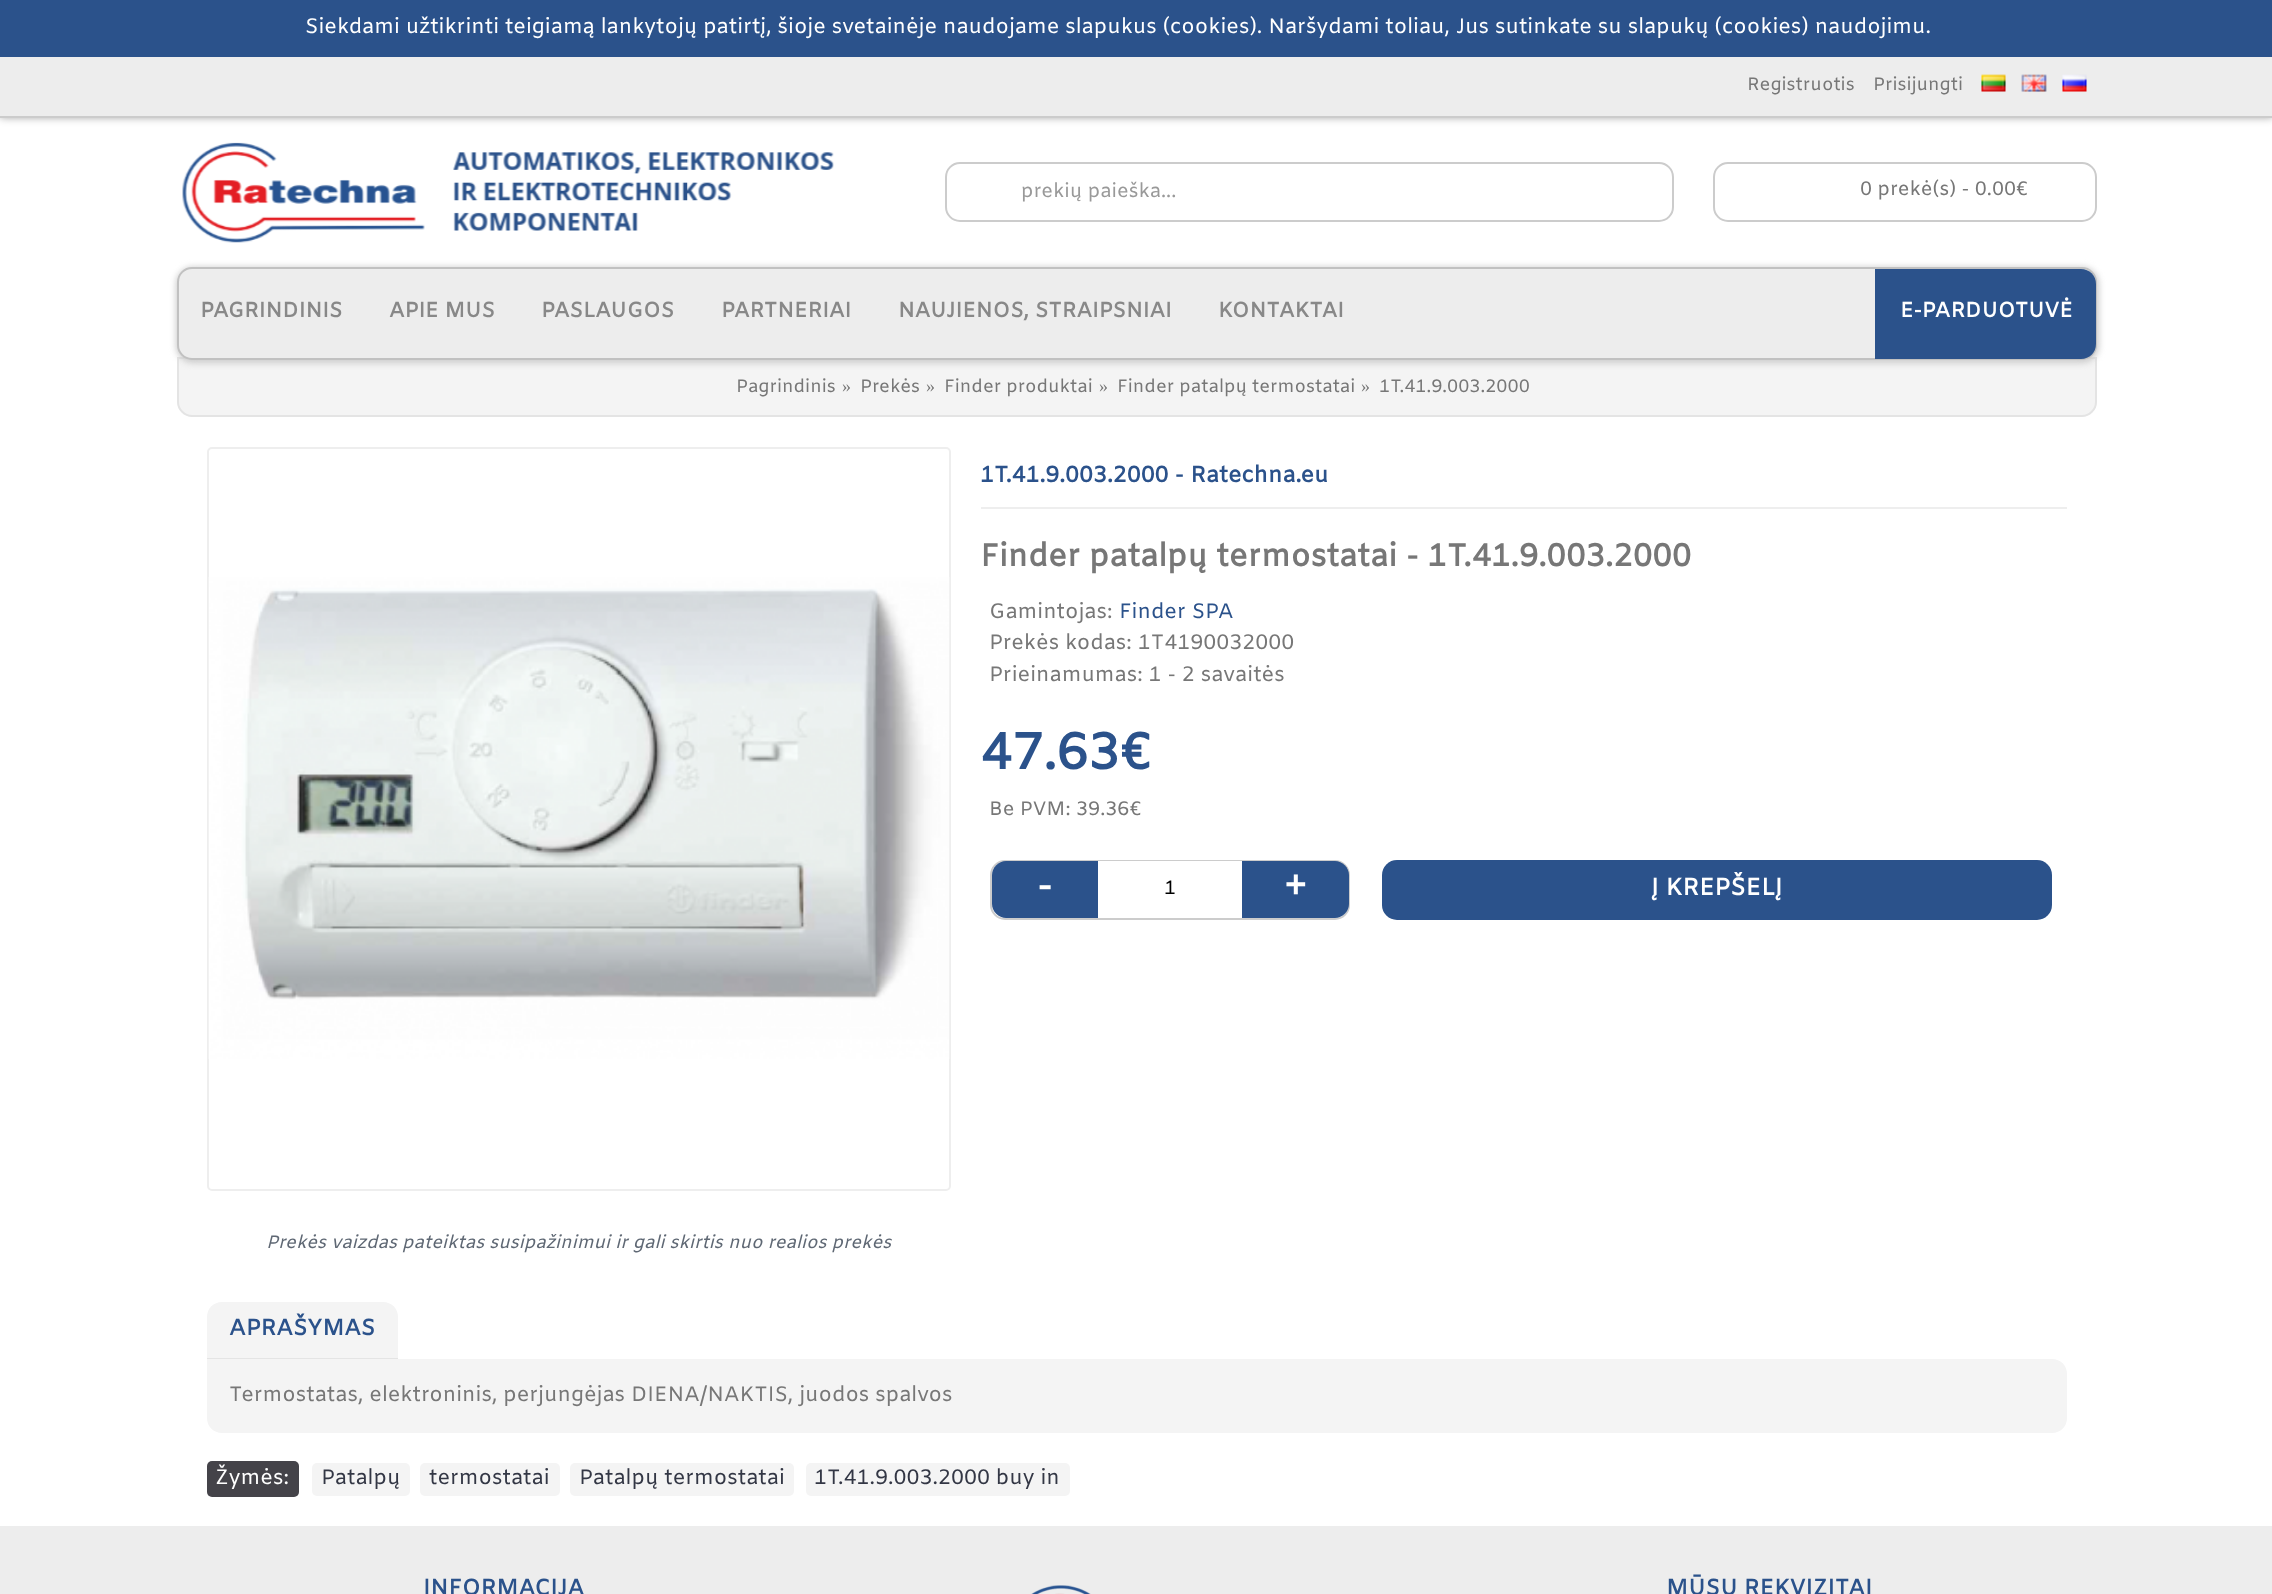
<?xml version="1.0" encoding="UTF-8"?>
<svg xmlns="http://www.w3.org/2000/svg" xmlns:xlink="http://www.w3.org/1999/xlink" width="2272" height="1594">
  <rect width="100%" height="100%" fill="#ffffff" />
  <rect y="57" width="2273" height="60" fill="#000000" fill-opacity="0.4" filter="blur(4px)" />
  <rect width="2272" height="57" fill="#2b528b" />
  <rect y="57" width="2272" height="59" fill="#ededed" />
  <rect y="116" width="2272" height="2" fill="#cccccc" />
  <image x="1981" y="74" width="25" height="18" xlink:href="image1.png" />
  <image x="2021" y="74" width="26" height="18" xlink:href="image2.png" />
  <image x="2062" y="74" width="25" height="18" xlink:href="image3.png" />
  <image x="182" y="142" width="652" height="101" xlink:href="image4.png" />
  <rect x="946" y="163" width="727" height="58" rx="14" fill="none" stroke="#cccccc" stroke-width="2" />
  <rect x="1714" y="163" width="382" height="58" rx="14" fill="none" stroke="#cccccc" stroke-width="2" />
  <path d="M 178 358 h 1918 v 44 c 0 7.5 -6.5 14 -14 14 h -1890 c -7.5 0 -14 -6.5 -14 -14 z" fill="#f4f4f4" stroke="#e4e4e4" stroke-width="2" />
  <rect x="176" y="267" width="1923" height="96" rx="17" fill="#cccccc" filter="blur(3px)" />
  <rect x="178" y="268" width="1918" height="91" rx="14" fill="#ededed" stroke="#c1c1c1" stroke-width="2" />
  <path d="M 1875 269 h 206 c 8.5 0 15 6.5 15 15 v 60 c 0 8.5 -6.5 15 -15 15 h -206 z" fill="#2b528b" />
  <rect x="981" y="507" width="1086" height="2" fill="#eeeeee" />
  <rect x="991" y="861" width="358" height="58" rx="14" fill="none" stroke="#cccccc" stroke-width="2" />
  <path d="M 1006 861 h 92 v 57 h -92 c -7.5 0 -14 -6.5 -14 -14 v -29 c 0 -7.5 6.5 -14 14 -14 z" fill="#2b528b" />
  <rect x="1098" y="861" width="144" height="1" fill="#ffffff" />
  <path d="M 1242 861 h 93 c 7.5 0 14 6.5 14 14 v 29 c 0 7.5 -6.5 14 -14 14 h -93 z" fill="#2b528b" />
  <rect x="1382" y="860" width="670" height="60" rx="15" fill="#2b528b" />
  <rect x="208" y="448" width="742" height="742" rx="4" fill="none" stroke="#eeeeee" stroke-width="2" />
  <image x="208" y="577" width="742" height="482" xlink:href="image5.png" />
  <rect x="207" y="1358" width="191" height="1" fill="#e4e4e4" />
  <path d="M 222 1302 h 161 c 8.5 0 15 6.5 15 15 v 41 h -191 v -41 c 0 -8.5 6.5 -15 15 -15 z" fill="#f4f4f4" />
  <path d="M 207 1359 h 1845 c 8.5 0 15 6.5 15 15 v 44 c 0 8.5 -6.5 15 -15 15 h -1830 c -8.5 0 -15 -6.5 -15 -15 z" fill="#f4f4f4" />
  <rect x="207" y="1461" width="92" height="36" rx="5" fill="#444349" />
  <rect x="312" y="1463" width="98" height="33" rx="5" fill="#f4f4f4" />
  <rect x="420" y="1463" width="140" height="33" rx="5" fill="#f4f4f4" />
  <rect x="570" y="1463" width="224" height="33" rx="5" fill="#f4f4f4" />
  <rect x="806" y="1463" width="264" height="33" rx="5" fill="#f4f4f4" />
  <rect y="1526" width="2272" height="68" fill="#ededed" />
  <image x="1031" y="1585" width="60" height="9" xlink:href="image6.png" />
  <text x="305" y="33" style="font-family: Amiko; font-size: 21px; fill: #ffffff">Siekdami užtikrinti teigiamą lankytojų patirtį, šioje svetainėje naudojame slapukus (cookies). Naršydami toliau, Jus sutinkate su slapukų (cookies) naudojimu.</text>
  <text x="1747" y="90" style="font-family: Amiko; font-size: 18px; fill: #777777">Registruotis</text>
  <text x="1873" y="90" style="font-family: Amiko; font-size: 18px; fill: #777777">Prisijungti</text>
  <text x="1021" y="197" style="font-family: Amiko; font-size: 19.5px; fill: #999999">prekių paieška...</text>
  <text x="1860" y="195" style="font-family: Amiko; font-size: 19.5px; fill: #777777">0 prekė(s) - 0.00€</text>
  <text x="200" y="317" style="font-family: Amiko; font-size: 21px; font-weight: bold; fill: #888888">PAGRINDINIS</text>
  <text x="389" y="317" style="font-family: Amiko; font-size: 21px; font-weight: bold; fill: #888888">APIE MUS</text>
  <text x="541" y="317" style="font-family: Amiko; font-size: 21px; font-weight: bold; fill: #888888">PASLAUGOS</text>
  <text x="721" y="317" style="font-family: Amiko; font-size: 21px; font-weight: bold; fill: #888888">PARTNERIAI</text>
  <text x="898" y="317" style="font-family: Amiko; font-size: 21px; font-weight: bold; fill: #888888">NAUJIENOS, STRAIPSNIAI</text>
  <text x="1218" y="317" style="font-family: Amiko; font-size: 21px; font-weight: bold; fill: #888888">KONTAKTAI</text>
  <text x="1900" y="317" style="font-family: Amiko; font-size: 21px; font-weight: bold; fill: #ffffff">E-PARDUOTUVĖ</text>
  <text x="736" y="392" style="font-family: Amiko; font-size: 18px; fill: #777777">Pagrindinis</text>
  <text x="842" y="392" style="font-family: Liberation Serif; font-size: 18px; fill: #777777">»</text>
  <text x="860" y="392" style="font-family: Amiko; font-size: 18px; fill: #777777">Prekės</text>
  <text x="926" y="392" style="font-family: Liberation Serif; font-size: 18px; fill: #777777">»</text>
  <text x="944" y="392" style="font-family: Amiko; font-size: 18px; fill: #777777">Finder produktai</text>
  <text x="1099" y="392" style="font-family: Liberation Serif; font-size: 18px; fill: #777777">»</text>
  <text x="1117" y="392" style="font-family: Amiko; font-size: 18px; fill: #777777">Finder patalpų termostatai</text>
  <text x="1361" y="392" style="font-family: Liberation Serif; font-size: 18px; fill: #777777">»</text>
  <text x="1379" y="392" style="font-family: Amiko; font-size: 18px; fill: #777777">1T.41.9.003.2000</text>
  <text x="980" y="482" style="font-family: Amiko; font-size: 22.5px; font-weight: bold; fill: #2b528b">1T.41.9.003.2000 - Ratechna.eu</text>
  <text x="980" y="566" style="font-family: Amiko; font-size: 31.5px; font-weight: bold; fill: #777777">Finder patalpų termostatai - 1T.41.9.003.2000</text>
  <text x="989" y="618" style="font-family: Amiko; font-size: 21px; fill: #777777">Gamintojas:</text>
  <text x="1119" y="618" style="font-family: Amiko; font-size: 21px; fill: #2b528b">Finder SPA</text>
  <text x="989" y="649" style="font-family: Amiko; font-size: 21px; fill: #777777">Prekės kodas: 1T4190032000</text>
  <text x="989" y="681" style="font-family: Amiko; font-size: 21px; fill: #777777">Prieinamumas: 1 - 2 savaitės</text>
  <text x="980" y="769" style="font-family: Amiko; font-size: 51px; font-weight: bold; fill: #2b528b">47.63€</text>
  <text x="989" y="815" style="font-family: Amiko; font-size: 19.5px; fill: #777777">Be PVM: 39.36€</text>
  <text x="1037" y="898" style="font-family: Amiko; font-size: 38px; font-weight: bold; fill: #ffffff">-</text>
  <text x="1164" y="894" style="font-family: Amiko; font-size: 19.5px; fill: #000000">1</text>
  <text x="1284" y="898" style="font-family: Amiko; font-size: 38px; font-weight: bold; fill: #ffffff">+</text>
  <text x="1651" y="895" style="font-family: Amiko; font-size: 24px; font-weight: bold; fill: #ffffff">Į KREPŠELĮ</text>
  <text x="266" y="1248" style="font-family: Amiko; font-size: 18px; font-style: italic; fill: #5f6874">Prekės vaizdas pateiktas susipažinimui ir gali skirtis nuo realios prekės</text>
  <text x="229" y="1335" style="font-family: Amiko; font-size: 22.5px; font-weight: bold; fill: #2b528b">APRAŠYMAS</text>
  <text x="229" y="1401" style="font-family: Amiko; font-size: 21px; fill: #777777">Termostatas, elektroninis, perjungėjas DIENA/NAKTIS, juodos spalvos</text>
  <text x="215" y="1484" style="font-family: Amiko; font-size: 21px; fill: #ffffff">Žymės:</text>
  <text x="321" y="1484" style="font-family: Amiko; font-size: 21px; fill: #333745">Patalpų</text>
  <text x="429" y="1484" style="font-family: Amiko; font-size: 21px; fill: #333745">termostatai</text>
  <text x="579" y="1484" style="font-family: Amiko; font-size: 21px; fill: #333745">Patalpų termostatai</text>
  <text x="814" y="1484" style="font-family: Amiko; font-size: 21px; fill: #333745">1T.41.9.003.2000 buy in</text>
  <text x="423" y="1595" style="font-family: Amiko; font-size: 22.5px; font-weight: bold; fill: #2b528b">INFORMACIJA</text>
  <text x="1666" y="1595" style="font-family: Amiko; font-size: 22.5px; font-weight: bold; fill: #2b528b">MŪSŲ REKVIZITAI</text>
</svg>
